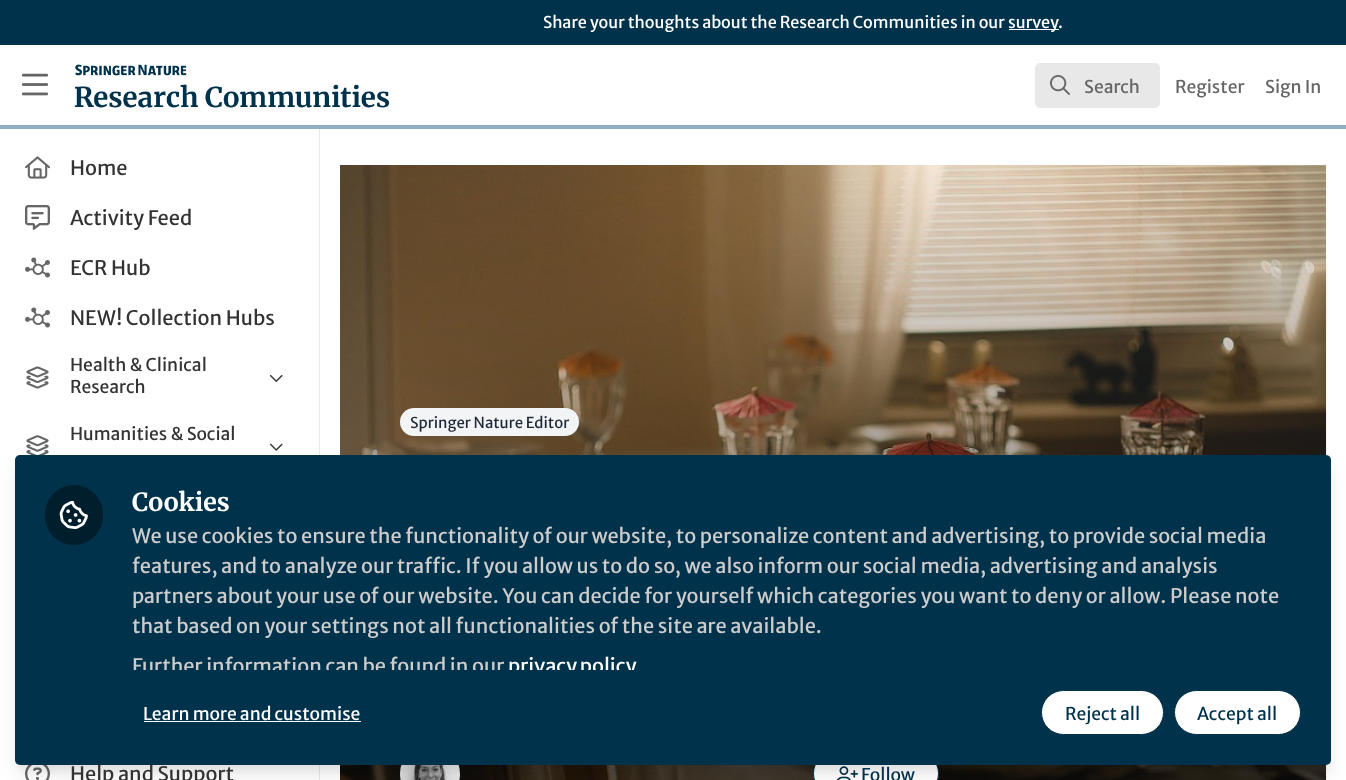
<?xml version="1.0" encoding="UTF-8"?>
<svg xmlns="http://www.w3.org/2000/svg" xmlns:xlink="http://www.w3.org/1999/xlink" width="1346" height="780">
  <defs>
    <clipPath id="clip1"><rect x="133" y="520" width="1168" height="150" /></clipPath>
  </defs>
  <rect width="100%" height="100%" fill="#ffffff" />
  <rect width="1346" height="45" fill="#01324b" />
  <rect x="1009" y="29" width="50" height="1" fill="#ffffff" />
  <rect x="319" y="125" width="1" height="655" fill="#e8e8e8" />
  <rect y="125" width="1346" height="4" fill="#90b0c2" />
  <image x="21" y="73" width="28" height="23" xlink:href="image1.png" />
  <image x="74" y="64" width="316" height="44" xlink:href="image2.png" />
  <rect x="1035" y="63" width="125" height="45" rx="5" fill="#e8e8e8" />
  <image x="1050" y="75" width="20" height="20" xlink:href="image3.png" />
  <image x="25" y="156" width="25" height="23" xlink:href="image4.png" />
  <image x="25" y="205" width="25" height="25" xlink:href="image5.png" />
  <image x="25" y="257" width="25" height="21" xlink:href="image6.png" />
  <image x="25" y="307" width="25" height="21" xlink:href="image6.png" />
  <image x="26" y="366" width="23" height="23" xlink:href="image7.png" />
  <image x="270" y="375" width="13" height="7" xlink:href="image8.png" />
  <image x="26" y="435" width="23" height="20" xlink:href="image9.png" />
  <image x="270" y="443" width="13" height="8" xlink:href="image10.png" />
  <image x="25" y="765" width="25" height="15" xlink:href="image11.png" />
  <image x="340" y="165" width="987" height="615" xlink:href="image12.png" />
  <rect x="400" y="408" width="179" height="28" rx="14" fill="#f3f4f6" />
  <image x="400" y="765" width="60" height="15" xlink:href="image13.png" />
  <rect x="813.5" y="751.5" width="125" height="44" rx="22" fill="#ffffff" stroke="#01324b" />
  <image x="837" y="766" width="22" height="14" xlink:href="image14.png" />
  <rect x="18" y="463" width="1311" height="305" rx="2.5" fill="#000000" fill-opacity="0.05" filter="blur(4px)" />
  <rect x="19" y="471" width="1309" height="303" rx="1" fill="#000000" fill-opacity="0.1" filter="blur(9.5px)" />
  <text x="543" y="28" style="font-family: Merriweather Sans; font-size: 16.25px; fill: #ffffff">Share your thoughts about the Research Communities in our</text>
  <text x="1008" y="28" style="font-family: Merriweather Sans; font-size: 16.25px; fill: #ffffff">survey</text>
  <text x="1058" y="28" style="font-family: Merriweather Sans; font-size: 16.25px; fill: #ffffff">.</text>
  <text x="1084" y="93" style="font-family: Merriweather Sans; font-size: 17.5px; fill: #666666">Search</text>
  <text x="1175" y="93" style="font-family: Merriweather Sans; font-size: 17.5px; fill: #666666">Register</text>
  <text x="1265" y="93" style="font-family: Merriweather Sans; font-size: 17.5px; fill: #666666">Sign In</text>
  <text x="70" y="175" style="font-family: Merriweather Sans; font-size: 20px; fill: #333333">Home</text>
  <text x="70" y="225" style="font-family: Merriweather Sans; font-size: 20px; fill: #333333">Activity Feed</text>
  <text x="70" y="275" style="font-family: Merriweather Sans; font-size: 20px; fill: #333333">ECR Hub</text>
  <text x="70" y="325" style="font-family: Merriweather Sans; font-size: 20px; fill: #333333">NEW! Collection Hubs</text>
  <text x="70" y="371" style="font-family: Merriweather Sans; font-size: 17.5px; fill: #333333">Health &amp; Clinical</text>
  <text x="70" y="393" style="font-family: Merriweather Sans; font-size: 17.5px; fill: #333333">Research</text>
  <text x="70" y="440" style="font-family: Merriweather Sans; font-size: 17.5px; fill: #333333">Humanities &amp; Social</text>
  <text x="70" y="781" style="font-family: Merriweather Sans; font-size: 20px; fill: #333333">Help and Support</text>
  <text x="410" y="428" style="font-family: Merriweather Sans; font-size: 15px; fill: #1f2937">Springer Nature Editor</text>
  <text x="861" y="781" style="font-family: Merriweather Sans; font-size: 17.5px; fill: #01324b">Follow</text>
  <rect x="15" y="455" width="1316" height="310" rx="5" fill="#01324b" />
  <rect x="45" y="485" width="58" height="60" rx="29" fill="#011e2d" />
  <image x="59" y="500" width="29" height="30" xlink:href="image15.png" />
  <text x="132" y="511" style="font-family: Merriweather; font-size: 25px; font-weight: bold; fill: #ffffff">Cookies</text>
  <text x="132" y="543" style="font-family: Merriweather Sans; font-size: 20px; fill: #cccccc">We use cookies to ensure the functionality of our website, to personalize content and advertising, to provide social media</text>
  <text x="132" y="573" style="font-family: Merriweather Sans; font-size: 20px; fill: #cccccc">features, and to analyze our traffic. If you allow us to do so, we also inform our social media, advertising and analysis</text>
  <text x="132" y="603" style="font-family: Merriweather Sans; font-size: 20px; fill: #cccccc">partners about your use of our website. You can decide for yourself which categories you want to deny or allow. Please note</text>
  <text x="132" y="633" style="font-family: Merriweather Sans; font-size: 20px; fill: #cccccc">that based on your settings not all functionalities of the site are available.</text>
  <g clip-path="url(#clip1)">
    <text x="132" y="673" style="font-family: Merriweather Sans; font-size: 20px; fill: #cccccc">Further information can be found in our</text>
    <text x="508" y="673" word-spacing="-1" style="font-family: Merriweather Sans; font-size: 20px; fill: #ffffff">privacy policy</text>
  </g>
  <text x="143" y="720" style="font-family: Merriweather Sans; font-size: 17.5px; fill: #ffffff">Learn more and customise</text>
  <rect x="144" y="721" width="217" height="1" fill="#ffffff" />
  <rect x="1041.5" y="690.5" width="122" height="44" rx="22" fill="#ffffff" stroke="#01324b" />
  <text x="1065" y="720" style="font-family: Merriweather Sans; font-size: 17.5px; fill: #01324b">Reject all</text>
  <rect x="1174.5" y="690.5" width="126" height="44" rx="22" fill="#ffffff" stroke="#01324b" />
  <text x="1197" y="720" style="font-family: Merriweather Sans; font-size: 17.5px; fill: #01324b">Accept all</text>
</svg>
